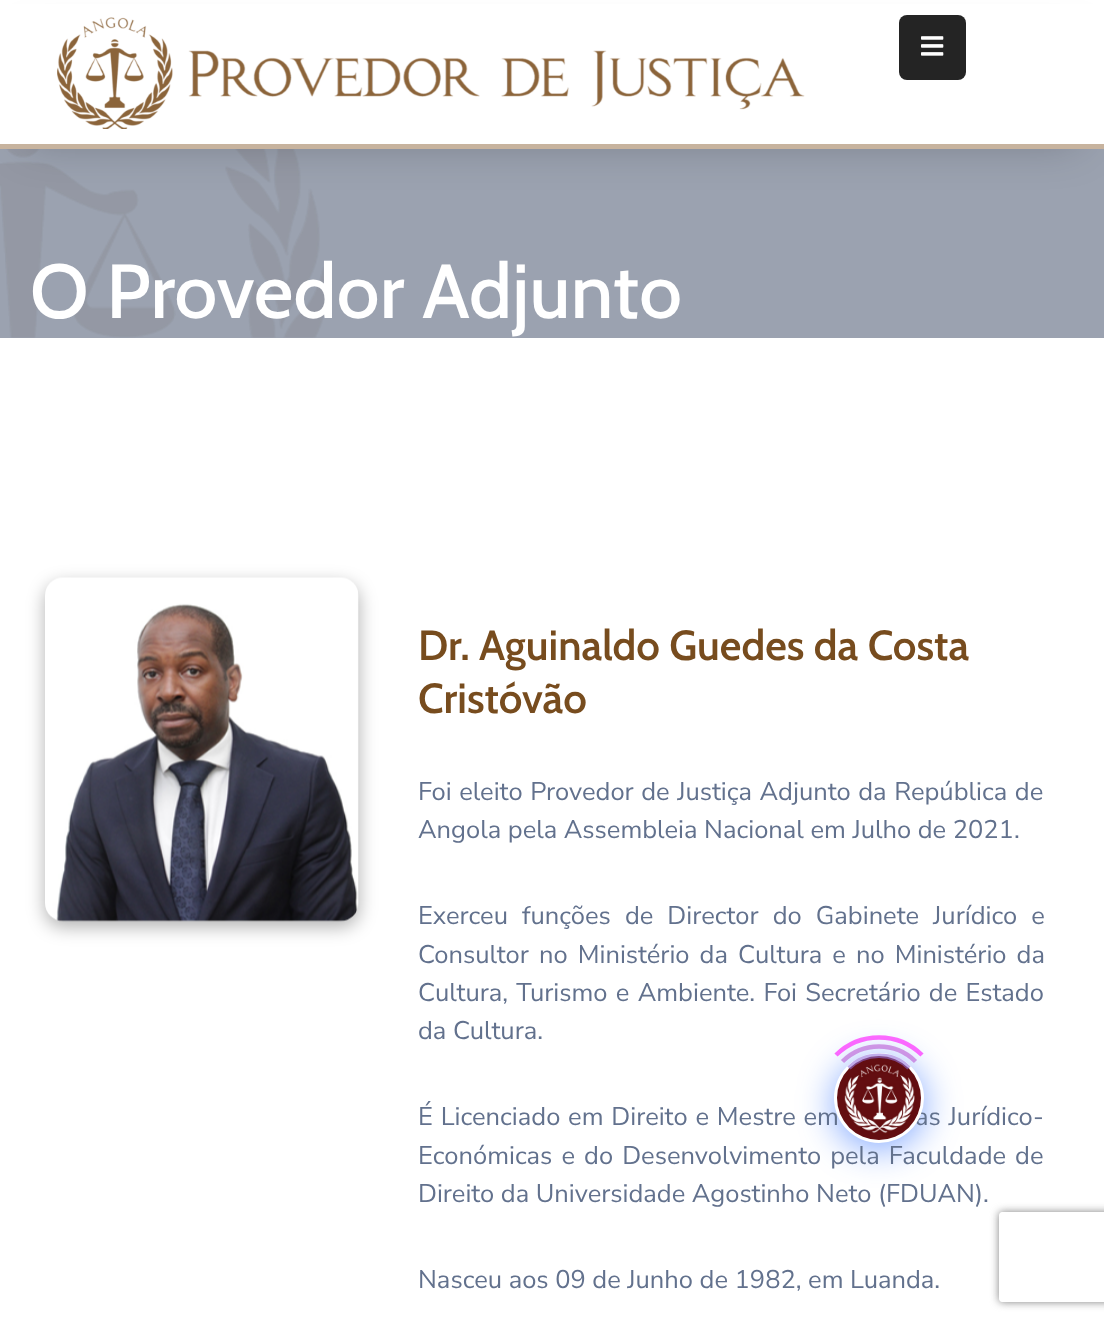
<?xml version="1.0" encoding="UTF-8"?>
<svg xmlns="http://www.w3.org/2000/svg" xmlns:xlink="http://www.w3.org/1999/xlink" width="1104" height="1323">
  <defs>
    <clipPath id="clip1"><path d="M 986 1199 h 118 v 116 h -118 z m 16 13 h 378 c 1.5 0 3 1.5 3 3 v 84 c 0 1.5 -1.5 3 -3 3 h -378 c -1.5 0 -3 -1.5 -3 -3 v -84 c 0 -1.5 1.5 -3 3 -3 z" clip-rule="evenodd" /></clipPath>
  </defs>
  <rect width="100%" height="100%" fill="#ffffff" />
  <rect y="149" width="1104" height="189" fill="#9ba2b0" />
  <image x="0" y="149" width="327" height="189" xlink:href="image3.png" />
  <rect x="26" y="44" width="1053" height="97" fill="#000000" fill-opacity="0.25" filter="blur(23px)" />
  <rect y="4" width="1104" height="140" fill="#ffffff" />
  <rect y="144" width="1104" height="5" fill="#c7b39e" />
  <image x="57" y="17" width="748" height="112" xlink:href="image1.png" />
  <rect x="899" y="15" width="67" height="65" rx="8" fill="#242424" />
  <image x="921" y="36" width="23" height="20" xlink:href="image2.png" />
  <rect x="45" y="584" width="314" height="343" rx="18" fill="#000000" fill-opacity="0.3" filter="blur(9px)" />
  <image x="45" y="577" width="314" height="345" xlink:href="image4.png" />
  <rect x="834" y="1059" width="90" height="90" rx="45" fill="#004dff" fill-opacity="0.5" filter="blur(18px)" />
  <g clip-path="url(#clip1)">
    <rect x="999" y="1212" width="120" height="90" rx="3" fill="#808080" filter="blur(4px)" />
  </g>
  <text x="30" y="318" style="font-family: Cabin; font-size: 76.5px; font-weight: 500; letter-spacing: 0.25px; fill: #ffffff">O Provedor Adjunto</text>
  <text x="418" y="660" style="font-family: Cabin; font-size: 42px; font-weight: 600; fill: #774c1e">Dr. Aguinaldo Guedes da Costa</text>
  <text x="418" y="713" style="font-family: Cabin; font-size: 42px; font-weight: 600; fill: #774c1e">Cristóvão</text>
  <text x="418" y="800" word-spacing="1" style="font-family: Nunito Sans; font-size: 25.5px; fill: #62718d">Foi eleito Provedor de Justiça Adjunto da República de</text>
  <text x="418" y="838" style="font-family: Nunito Sans; font-size: 25.5px; fill: #62718d">Angola pela Assembleia Nacional em Julho de 2021.</text>
  <text x="418" y="924" word-spacing="7.5" style="font-family: Nunito Sans; font-size: 25.5px; fill: #62718d">Exerceu funções de Director do Gabinete Jurídico e</text>
  <text x="418" y="963" word-spacing="3.5" style="font-family: Nunito Sans; font-size: 25.5px; fill: #62718d">Consultor no Ministério da Cultura e no Ministério da</text>
  <text x="418" y="1001" word-spacing="1.75" style="font-family: Nunito Sans; font-size: 25.5px; fill: #62718d">Cultura, Turismo e Ambiente. Foi Secretário de Estado</text>
  <text x="418" y="1039" style="font-family: Nunito Sans; font-size: 25.5px; fill: #62718d">da Cultura.</text>
  <text x="418" y="1125" word-spacing="1.25" style="font-family: Nunito Sans; font-size: 25.5px; fill: #62718d">É Licenciado em Direito e Mestre em</text>
  <text x="915" y="1125" word-spacing="1.25" style="font-family: Nunito Sans; font-size: 25.5px; fill: #62718d">as Jurídico-</text>
  <text x="418" y="1164" word-spacing="2.5" style="font-family: Nunito Sans; font-size: 25.5px; fill: #62718d">Económicas e do Desenvolvimento pela Faculdade de</text>
  <text x="418" y="1202" style="font-family: Nunito Sans; font-size: 25.5px; fill: #62718d">Direito da Universidade Agostinho Neto (FDUAN).</text>
  <text x="418" y="1288" style="font-family: Nunito Sans; font-size: 25.5px; fill: #62718d">Nasceu aos 09 de Junho de 1982, em Luanda.</text>
  <circle cx="879" cy="1098" r="45" fill="#ffffff" />
  <image x="837" y="1056" width="84" height="84" xlink:href="image5.png" />
  <path d="M 849 1068 c 16 -16.5 44 -16.5 60 0" fill="none" stroke="#9370db" stroke-opacity="0.58" stroke-width="4.5" />
  <path d="M 842.5 1061.5 c 20 -20 53 -20 73 0" fill="none" stroke="#ba55d3" stroke-opacity="0.58" stroke-width="4.5" />
  <path d="M 836 1055 c 23.5 -23.5 62.5 -23.5 86 0" fill="none" stroke="#ff00ff" stroke-opacity="0.58" stroke-width="4.5" />
</svg>
